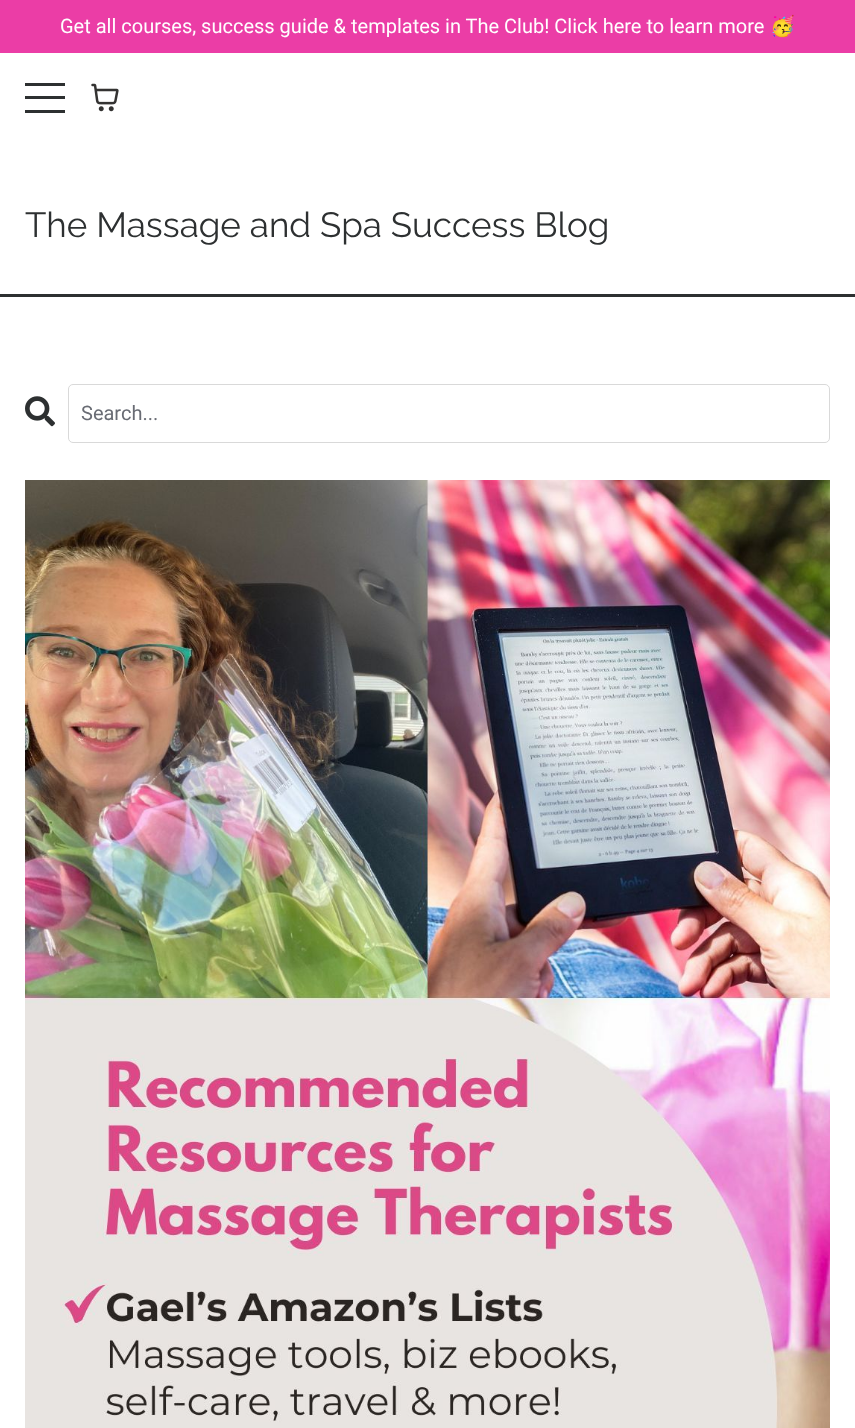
<?xml version="1.0" encoding="UTF-8"?>
<svg xmlns="http://www.w3.org/2000/svg" xmlns:xlink="http://www.w3.org/1999/xlink" width="855" height="1428">
  <rect width="100%" height="100%" fill="#ffffff" />
  <rect width="855" height="53" fill="#eb3da6" />
  <rect x="25" y="83" width="40" height="3" fill="#2d3031" />
  <rect x="25" y="96" width="40" height="3" fill="#2d3031" />
  <rect x="25" y="110" width="40" height="3" fill="#2d3031" />
  <image x="91" y="83" width="28" height="29" xlink:href="image1.png" />
  <rect y="294" width="855" height="3" fill="#2d3031" />
  <image x="25" y="396" width="30" height="31" xlink:href="image2.png" />
  <rect x="68.5" y="384.5" width="761" height="58" rx="4.5" fill="none" stroke="#d9d9d9" />
  <image x="25" y="480" width="805" height="948" xlink:href="image3.png" />
  <text x="60" y="33" style="font-family: Roboto; font-size: 20px; fill: #ffffff">Get all courses, success guide &amp; templates in The Club! Click here to learn more</text>
  <text x="770" y="33" style="font-family: Noto Color Emoji; font-size: 20px; fill: #ffffff">🥳</text>
  <text x="25" y="237" style="font-family: Raleway; font-size: 35px; fill: #2d3031">The Massage and Spa Success Blog</text>
  <text x="81" y="420" style="font-family: Roboto; font-size: 20px; fill: #696c74">Search...</text>
</svg>
